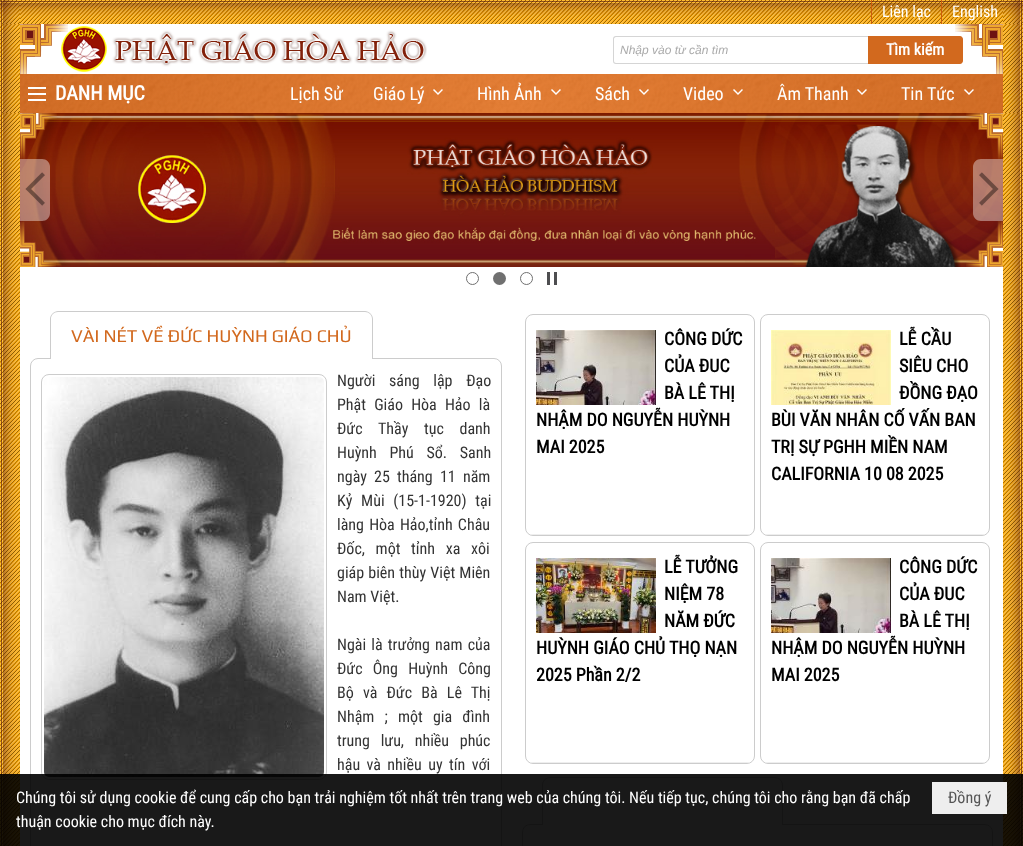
<?xml version="1.0" encoding="UTF-8"?>
<svg xmlns="http://www.w3.org/2000/svg" xmlns:xlink="http://www.w3.org/1999/xlink" width="1023" height="846">
  <defs>
    <clipPath id="clip1"><rect x="526" y="315" width="228" height="220" rx="7" /></clipPath>
    <clipPath id="clip2"><rect x="761" y="315" width="228" height="220" rx="7" /></clipPath>
    <clipPath id="clip3"><rect x="526" y="543" width="228" height="220" rx="7" /></clipPath>
    <clipPath id="clip4"><rect x="761" y="543" width="228" height="220" rx="7" /></clipPath>
  </defs>
  <rect width="100%" height="100%" fill="#ffffff" />
  <image x="0" y="113" width="1023" height="733" xlink:href="image1.png" />
  <image x="0" y="0" width="1023" height="24" xlink:href="image2.png" />
  <rect x="871" width="1" height="24" fill="#cc5d0e" />
  <rect x="941" width="1" height="24" fill="#cc5d0e" />
  <image x="0" y="24" width="1023" height="89" xlink:href="image3.png" />
  <image x="20" y="24" width="983" height="50" xlink:href="image4.png" />
  <image x="61" y="26" width="366" height="46" xlink:href="image5.png" />
  <path d="M 616 36 h 252 v 28 h -252 c -2 0 -3 -1 -3 -3 v -22 c 0 -2 1 -3 3 -3 z m 0 1 h 252 v 26 h -252 c -1 0 -2 -1 -2 -2 v -22 c 0 -1 1 -2 2 -2 z" fill="#d5d5d5" fill-rule="evenodd" />
  <path d="M 868 36 h 92 c 1.5 0 3 1.5 3 3 v 22 c 0 1.5 -1.5 3 -3 3 h -92 z" fill="#d2691e" />
  <image x="20" y="74" width="983" height="39" xlink:href="image6.png" />
  <image x="28" y="87" width="18" height="14" xlink:href="image7.png" />
  <image x="433" y="89" width="10" height="6" xlink:href="image8.png" />
  <image x="551" y="89" width="10" height="6" xlink:href="image9.png" />
  <image x="639" y="89" width="10" height="6" xlink:href="image10.png" />
  <image x="733" y="89" width="10" height="6" xlink:href="image11.png" />
  <image x="857" y="89" width="10" height="6" xlink:href="image12.png" />
  <image x="964" y="89" width="10" height="6" xlink:href="image13.png" />
  <image x="20" y="113" width="983" height="154" xlink:href="image14.png" />
  <path d="M 20 159 h 22 c 4.5 0 8 3.5 8 8 v 46 c 0 4.5 -3.5 8 -8 8 h -22 z" fill="#ffffff" fill-opacity="0.4" />
  <image x="25" y="172" width="20" height="34" xlink:href="image15.png" />
  <path d="M 981 159 h 22 v 62 h -22 c -4.5 0 -8 -3.5 -8 -8 v -46 c 0 -4.5 3.5 -8 8 -8 z" fill="#ffffff" fill-opacity="0.4" />
  <image x="979" y="172" width="20" height="34" xlink:href="image16.png" />
  <circle cx="472.5" cy="278.5" r="6" fill="none" stroke="#707070" />
  <circle cx="499.5" cy="278.5" r="6.5" fill="#707070" />
  <circle cx="526.5" cy="278.5" r="6" fill="none" stroke="#707070" />
  <image x="547" y="272" width="10" height="13" xlink:href="image17.png" />
  <rect x="30.5" y="358.5" width="471" height="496" rx="7.5" fill="none" stroke="#cccccc" />
  <path d="M 58 311 h 307 c 4.5 0 8 3.5 8 8 v 40 h -323 v -40 c 0 -4.5 3.5 -8 8 -8 z" fill="#ffffff" />
  <path d="M 58 311 h 307 c 4 0 8 4 8 8 v 40 h -323 v -40 c 0 -4 4 -8 8 -8 z m 0 1 h 307 c 4 0 7 3 7 7 v 40 h -321 v -40 c 0 -4 3 -7 7 -7 z" fill="#cccccc" fill-rule="evenodd" />
  <rect x="41.5" y="374.5" width="285" height="405" rx="7.5" fill="none" stroke="#cccccc" />
  <image x="44" y="377" width="280" height="400" xlink:href="image18.png" />
  <rect x="525.5" y="314.5" width="229" height="221" rx="7.5" fill="none" stroke="#cccccc" />
  <g clip-path="url(#clip1)">
    <rect x="526" y="534" width="228" height="1" fill="#eeeeee" />
  </g>
  <image x="536" y="330" width="120" height="75" xlink:href="image19.png" />
  <rect x="760.5" y="314.5" width="229" height="221" rx="7.5" fill="none" stroke="#cccccc" />
  <g clip-path="url(#clip2)">
    <rect x="761" y="534" width="228" height="1" fill="#eeeeee" />
  </g>
  <image x="771" y="330" width="120" height="75" xlink:href="image20.png" />
  <rect x="525.5" y="542.5" width="229" height="221" rx="7.5" fill="none" stroke="#cccccc" />
  <g clip-path="url(#clip3)">
    <rect x="526" y="762" width="228" height="1" fill="#eeeeee" />
  </g>
  <image x="536" y="558" width="120" height="75" xlink:href="image21.png" />
  <rect x="760.5" y="542.5" width="229" height="221" rx="7.5" fill="none" stroke="#cccccc" />
  <g clip-path="url(#clip4)">
    <rect x="761" y="762" width="228" height="1" fill="#eeeeee" />
  </g>
  <image x="771" y="558" width="120" height="75" xlink:href="image22.png" />
  <rect x="523" y="825" width="469" height="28" rx="7" fill="#f9f9f9" />
  <rect x="522.5" y="824.5" width="470" height="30" rx="7.5" fill="none" stroke="#cccccc" />
  <path d="M 550 777 h 225 c 4.5 0 8 3.5 8 8 v 40 h -241 v -40 c 0 -4.5 3.5 -8 8 -8 z" fill="#f9f9f9" />
  <path d="M 550 777 h 225 c 4 0 8 4 8 8 v 40 h -241 v -40 c 0 -4 4 -8 8 -8 z m 0 1 h 225 c 4 0 7 3 7 7 v 40 h -239 v -40 c 0 -4 3 -7 7 -7 z" fill="#cccccc" fill-rule="evenodd" />
  <rect y="774" width="1023" height="72" fill="#000000" fill-opacity="0.9" />
  <rect x="932" y="782" width="75" height="32" fill="#eeeeee" />
  <text x="882" y="17" style="font-family: Roboto Condensed; font-size: 16px; fill: #ffffff">Liên lạc</text>
  <text x="952" y="17" style="font-family: Roboto Condensed; font-size: 16px; fill: #ffffff">English</text>
  <text x="620" y="54" style="font-family: Liberation Sans; font-size: 12px; font-style: italic; fill: #aaaaaa">Nhập vào từ cần tìm</text>
  <text x="886" y="55" style="font-family: Roboto Condensed; font-size: 16px; font-weight: bold; fill: #ffffff">Tìm kiếm</text>
  <text x="55" y="100" style="font-family: Roboto Condensed; font-size: 20px; font-weight: bold; fill: #ffffff">DANH MỤC</text>
  <text x="290" y="100" style="font-family: Roboto Condensed; font-size: 18px; fill: #ffffff">Lịch Sử</text>
  <text x="373" y="100" style="font-family: Roboto Condensed; font-size: 18px; fill: #ffffff">Giáo Lý</text>
  <text x="477" y="100" style="font-family: Roboto Condensed; font-size: 18px; fill: #ffffff">Hình Ảnh</text>
  <text x="595" y="100" style="font-family: Roboto Condensed; font-size: 18px; fill: #ffffff">Sách</text>
  <text x="683" y="100" style="font-family: Roboto Condensed; font-size: 18px; fill: #ffffff">Video</text>
  <text x="777" y="100" style="font-family: Roboto Condensed; font-size: 18px; fill: #ffffff">Âm Thanh</text>
  <text x="901" y="100" style="font-family: Roboto Condensed; font-size: 18px; fill: #ffffff">Tin Tức</text>
  <text x="71" y="342" style="font-family: Play; font-size: 18px; fill: #d2691e">VÀI NÉT VỀ ĐỨC HUỲNH GIÁO CHỦ</text>
  <text x="337" y="386" word-spacing="10" style="font-family: Roboto Condensed; font-size: 16px; fill: #333333">Người sáng lập Đạo</text>
  <text x="337" y="410" word-spacing="4.5" style="font-family: Roboto Condensed; font-size: 16px; fill: #333333">Phật Giáo Hòa Hảo là</text>
  <text x="337" y="434" word-spacing="12" style="font-family: Roboto Condensed; font-size: 16px; fill: #333333">Đức Thầy tục danh</text>
  <text x="337" y="458" word-spacing="9" style="font-family: Roboto Condensed; font-size: 16px; fill: #333333">Huỳnh Phú Sổ. Sanh</text>
  <text x="337" y="482" word-spacing="3.5" style="font-family: Roboto Condensed; font-size: 16px; fill: #333333">ngày 25 tháng 11 năm</text>
  <text x="337" y="506" word-spacing="5" style="font-family: Roboto Condensed; font-size: 16px; fill: #333333">Kỷ Mùi (15-1-1920) tại</text>
  <text x="337" y="530" word-spacing="1.5" style="font-family: Roboto Condensed; font-size: 16px; fill: #333333">làng Hòa Hảo,tỉnh Châu</text>
  <text x="337" y="554" word-spacing="7" style="font-family: Roboto Condensed; font-size: 16px; fill: #333333">Đốc, một tỉnh xa xôi</text>
  <text x="337" y="578" word-spacing="0.5" style="font-family: Roboto Condensed; font-size: 16px; fill: #333333">giáp biên thùy Việt Miên</text>
  <text x="337" y="602" style="font-family: Roboto Condensed; font-size: 16px; fill: #333333">Nam Việt.</text>
  <text x="337" y="650" word-spacing="1.5" style="font-family: Roboto Condensed; font-size: 16px; fill: #333333">Ngài là trưởng nam của</text>
  <text x="337" y="674" word-spacing="6.5" style="font-family: Roboto Condensed; font-size: 16px; fill: #333333">Đức Ông Huỳnh Công</text>
  <text x="337" y="698" word-spacing="5.5" style="font-family: Roboto Condensed; font-size: 16px; fill: #333333">Bộ và Đức Bà Lê Thị</text>
  <text x="337" y="722" word-spacing="6.5" style="font-family: Roboto Condensed; font-size: 16px; fill: #333333">Nhậm ; một gia đình</text>
  <text x="337" y="746" word-spacing="7" style="font-family: Roboto Condensed; font-size: 16px; fill: #333333">trung lưu, nhiều phúc</text>
  <text x="337" y="770" word-spacing="2.75" style="font-family: Roboto Condensed; font-size: 16px; fill: #333333">hậu và nhiều uy tín với</text>
  <text x="664" y="345" style="font-family: Roboto Condensed; font-size: 18px; font-weight: bold; fill: #000000">CÔNG DỨC</text>
  <text x="664" y="372" style="font-family: Roboto Condensed; font-size: 18px; font-weight: bold; fill: #000000">CỦA ĐUC</text>
  <text x="664" y="399" style="font-family: Roboto Condensed; font-size: 18px; font-weight: bold; fill: #000000">BÀ LÊ THỊ</text>
  <text x="536" y="426" style="font-family: Roboto Condensed; font-size: 18px; font-weight: bold; fill: #000000">NHẬM DO NGUYỄN HUỲNH</text>
  <text x="536" y="453" style="font-family: Roboto Condensed; font-size: 18px; font-weight: bold; fill: #000000">MAI 2025</text>
  <text x="899" y="345" style="font-family: Roboto Condensed; font-size: 18px; font-weight: bold; fill: #000000">LỄ CẦU</text>
  <text x="899" y="372" style="font-family: Roboto Condensed; font-size: 18px; font-weight: bold; fill: #000000">SIÊU CHO</text>
  <text x="899" y="399" style="font-family: Roboto Condensed; font-size: 18px; font-weight: bold; fill: #000000">ĐỒNG ĐẠO</text>
  <text x="771" y="426" style="font-family: Roboto Condensed; font-size: 18px; font-weight: bold; fill: #000000">BÙI VĂN NHÂN CỐ VẤN BAN</text>
  <text x="771" y="453" style="font-family: Roboto Condensed; font-size: 18px; font-weight: bold; fill: #000000">TRỊ SỰ PGHH MIỀN NAM</text>
  <text x="771" y="480" style="font-family: Roboto Condensed; font-size: 18px; font-weight: bold; fill: #000000">CALIFORNIA 10 08 2025</text>
  <text x="664" y="573" style="font-family: Roboto Condensed; font-size: 18px; font-weight: bold; fill: #000000">LỄ TƯỞNG</text>
  <text x="664" y="600" style="font-family: Roboto Condensed; font-size: 18px; font-weight: bold; fill: #000000">NIỆM 78</text>
  <text x="664" y="627" style="font-family: Roboto Condensed; font-size: 18px; font-weight: bold; fill: #000000">NĂM ĐỨC</text>
  <text x="536" y="654" style="font-family: Roboto Condensed; font-size: 18px; font-weight: bold; fill: #000000">HUỲNH GIÁO CHỦ THỌ NẠN</text>
  <text x="536" y="681" style="font-family: Roboto Condensed; font-size: 18px; font-weight: bold; fill: #000000">2025 Phần 2/2</text>
  <text x="899" y="573" style="font-family: Roboto Condensed; font-size: 18px; font-weight: bold; fill: #000000">CÔNG DỨC</text>
  <text x="899" y="600" style="font-family: Roboto Condensed; font-size: 18px; font-weight: bold; fill: #000000">CỦA ĐUC</text>
  <text x="899" y="627" style="font-family: Roboto Condensed; font-size: 18px; font-weight: bold; fill: #000000">BÀ LÊ THỊ</text>
  <text x="771" y="654" style="font-family: Roboto Condensed; font-size: 18px; font-weight: bold; fill: #000000">NHẬM DO NGUYỄN HUỲNH</text>
  <text x="771" y="681" style="font-family: Roboto Condensed; font-size: 18px; font-weight: bold; fill: #000000">MAI 2025</text>
  <text x="16" y="803" style="font-family: Roboto Condensed; font-size: 16px; fill: #ffffff">Chúng tôi sử dụng cookie để cung cấp cho bạn trải nghiệm tốt nhất trên trang web của chúng tôi. Nếu tiếp tục, chúng tôi cho rằng bạn đã chấp</text>
  <text x="16" y="827" style="font-family: Roboto Condensed; font-size: 16px; fill: #ffffff">thuận cookie cho mục đích này.</text>
  <text x="948" y="803" style="font-family: Roboto Condensed; font-size: 16px; fill: #555555">Đồng ý</text>
</svg>
